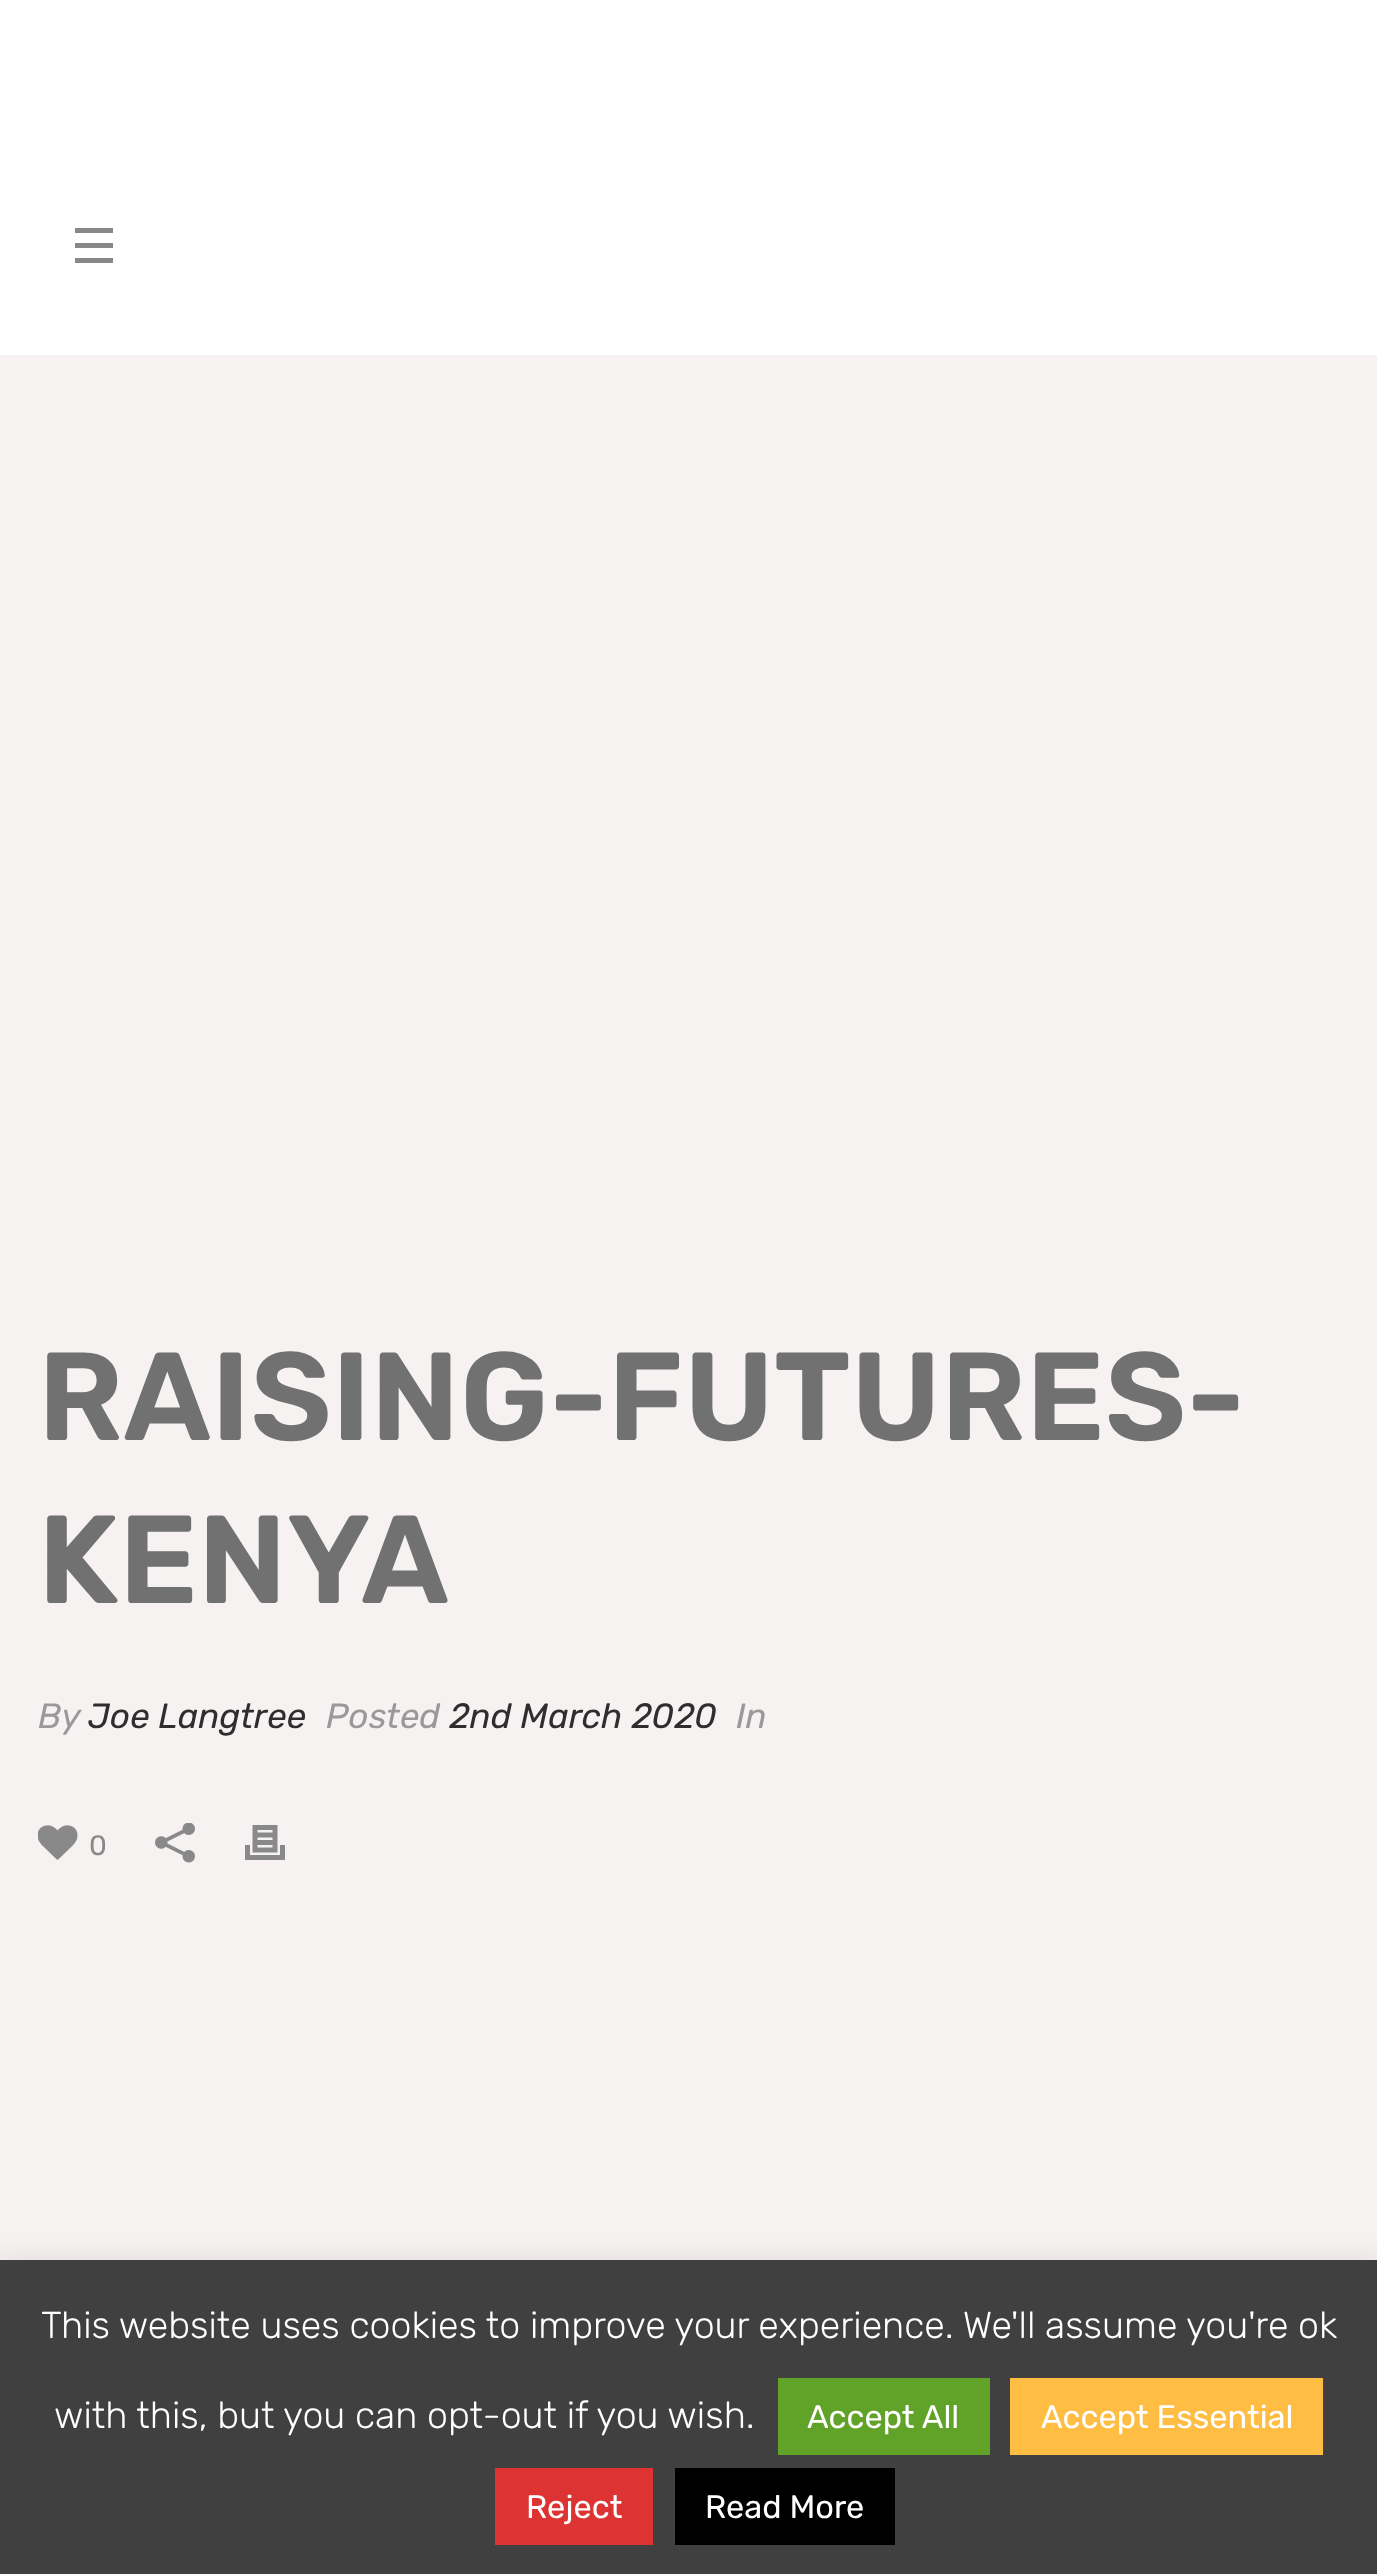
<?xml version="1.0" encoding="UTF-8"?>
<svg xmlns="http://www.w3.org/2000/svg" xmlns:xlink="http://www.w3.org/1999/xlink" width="1377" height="2574">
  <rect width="100%" height="100%" fill="#ffffff" />
  <rect x="75" y="243" width="38" height="5" fill="#888888" />
  <rect x="75" y="228" width="38" height="5" fill="#888888" />
  <rect x="75" y="258" width="38" height="5" fill="#888888" />
  <rect y="355" width="1377" height="1905" fill="#f7f2f2" />
  <image x="38" y="1825" width="40" height="35" xlink:href="image1.png" />
  <image x="155" y="1823" width="40" height="40" xlink:href="image2.png" />
  <image x="245" y="1825" width="40" height="35" xlink:href="image3.png" />
  <rect y="2258" width="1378" height="315" fill="#acabab" fill-opacity="0.3" filter="blur(12.5px)" />
  <rect y="2260" width="1377" height="314" fill="#404041" />
  <rect x="778" y="2378" width="212" height="77" fill="#61a229" />
  <rect x="1010" y="2378" width="313" height="77" fill="#ffbd43" />
  <rect x="495" y="2468" width="158" height="77" fill="#dd3333" />
  <rect x="675" y="2468" width="220" height="77" fill="#000000" />
  <text x="38" y="1440" style="font-family: Rubik; font-size: 125px; font-weight: 600; fill: #717171">RAISING-FUTURES-</text>
  <text x="38" y="1603" style="font-family: Rubik; font-size: 125px; font-weight: 600; fill: #717171">KENYA</text>
  <text x="38" y="1728" style="font-family: Rubik; font-size: 35px; font-style: italic; fill: #999999">By</text>
  <text x="88" y="1728" style="font-family: Rubik; font-size: 35px; font-style: italic; fill: #2e2e2e">Joe Langtree</text>
  <text x="326" y="1728" style="font-family: Rubik; font-size: 35px; font-style: italic; fill: #999999">Posted</text>
  <text x="449" y="1728" style="font-family: Rubik; font-size: 35px; font-style: italic; fill: #2e2e2e">2nd March 2020</text>
  <text x="736" y="1728" style="font-family: Rubik; font-size: 35px; font-style: italic; fill: #999999">In</text>
  <text x="89" y="1855" style="font-family: Rubik; font-size: 28px; fill: #898989">0</text>
  <text x="41" y="2338" style="font-family: Rubik; font-size: 37.5px; font-weight: 300; fill: #ffffff">This website uses cookies to improve your experience. We'll assume you're ok</text>
  <text x="54" y="2428" style="font-family: Rubik; font-size: 37.5px; font-weight: 300; fill: #ffffff">with this, but you can opt-out if you wish.</text>
  <text x="807" y="2428" style="font-family: Rubik; font-size: 32.5px; fill: #ffffff">Accept All</text>
  <text x="1041" y="2428" style="font-family: Rubik; font-size: 32.5px; fill: #ffffff">Accept Essential</text>
  <text x="526" y="2518" style="font-family: Rubik; font-size: 32.5px; fill: #ffffff">Reject</text>
  <text x="705" y="2518" style="font-family: Rubik; font-size: 32.5px; fill: #ffffff">Read More</text>
</svg>
